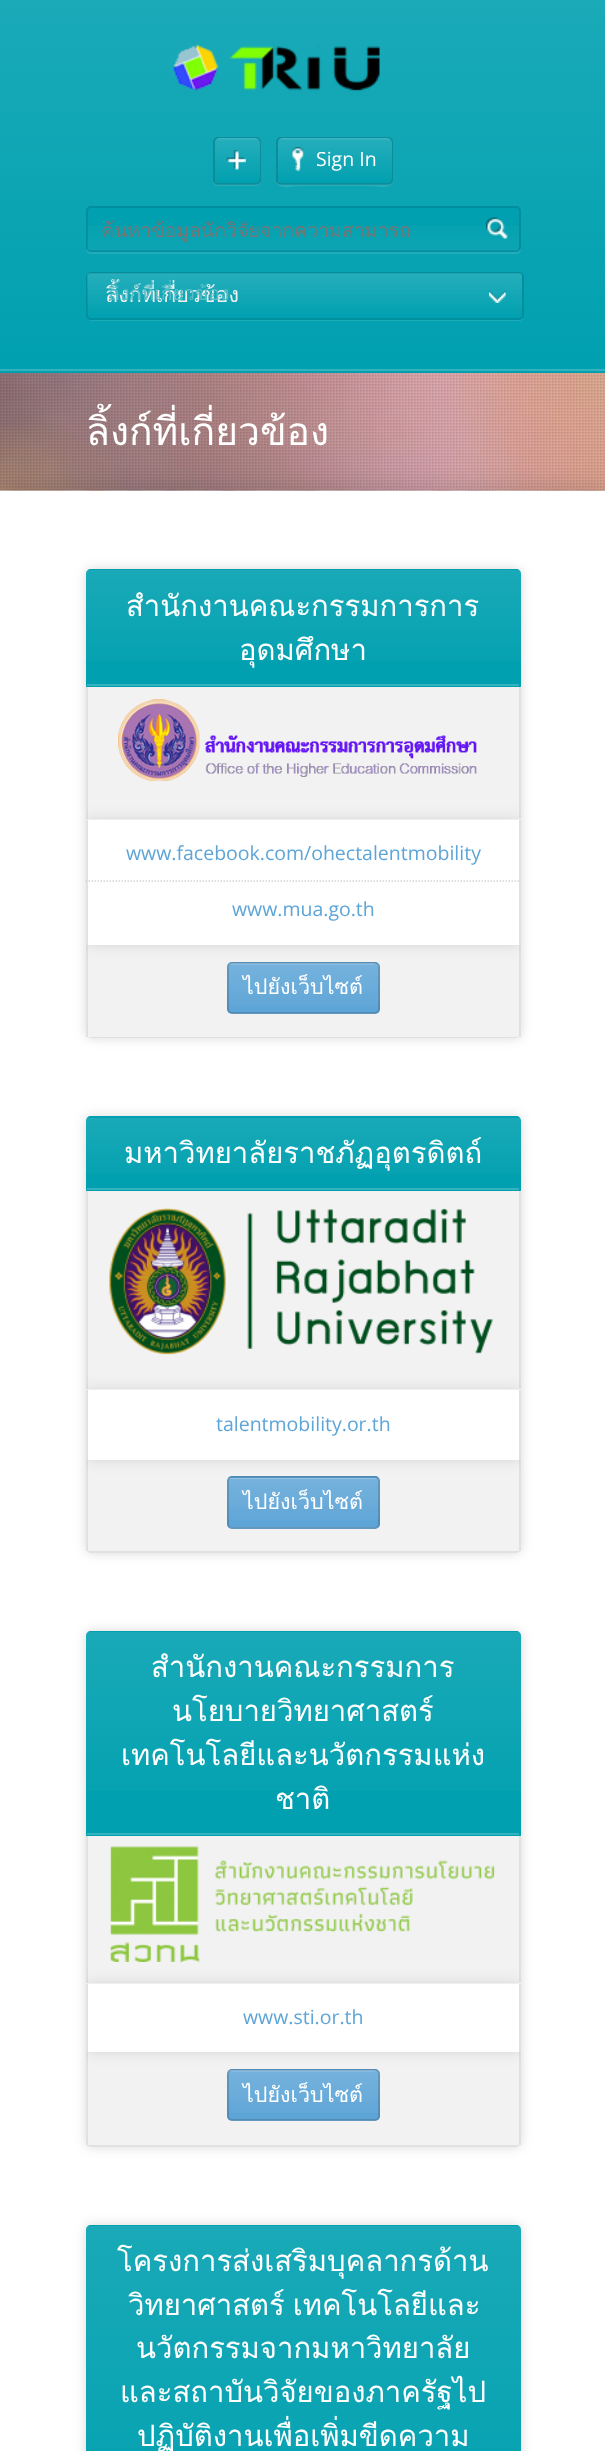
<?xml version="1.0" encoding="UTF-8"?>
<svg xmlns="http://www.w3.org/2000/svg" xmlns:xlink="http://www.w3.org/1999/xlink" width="605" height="2451">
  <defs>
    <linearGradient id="g1" gradientUnits="userSpaceOnUse" x1="303" y1="1.5" x2="303" y2="369"><stop offset="0" stop-color="#1aaab8" /><stop offset="1" stop-color="#00a0b0" /></linearGradient>
    <linearGradient id="g2" gradientUnits="userSpaceOnUse" x1="237" y1="138" x2="237" y2="183"><stop offset="0" stop-color="#ffffff" stop-opacity="0.15" /><stop offset="1" stop-color="#ffffff" stop-opacity="0" /></linearGradient>
    <linearGradient id="g3" gradientUnits="userSpaceOnUse" x1="335" y1="138" x2="335" y2="183"><stop offset="0" stop-color="#ffffff" stop-opacity="0.15" /><stop offset="1" stop-color="#ffffff" stop-opacity="0" /></linearGradient>
    <linearGradient id="g4" gradientUnits="userSpaceOnUse" x1="303" y1="207" x2="303" y2="251"><stop offset="0" stop-color="#ffffff" stop-opacity="0" /><stop offset="1" stop-color="#ffffff" stop-opacity="0.05" /></linearGradient>
    <linearGradient id="g5" gradientUnits="userSpaceOnUse" x1="305" y1="273" x2="305" y2="318"><stop offset="0" stop-color="#ffffff" stop-opacity="0.15" /><stop offset="1" stop-color="#ffffff" stop-opacity="0" /></linearGradient>
    <clipPath id="clip1"><rect x="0" y="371" width="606" height="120" /></clipPath>
    <clipPath id="clip2"><path d="M 91 569 h 425 c 3 0 5 2 5 5 v 113 h -435 v -113 c 0 -3 2 -5 5 -5 z" /></clipPath>
    <linearGradient id="g6" gradientUnits="userSpaceOnUse" x1="303" y1="570" x2="303" y2="686"><stop offset="0" stop-color="#ffffff" stop-opacity="0.1" /><stop offset="1" stop-color="#ffffff" stop-opacity="0" /></linearGradient>
    <linearGradient id="g7" gradientUnits="userSpaceOnUse" x1="303" y1="686" x2="303" y2="801"><stop offset="0" stop-color="#1aaab8" /><stop offset="1" stop-color="#00a0b0" /></linearGradient>
    <clipPath id="clip3"><rect x="227" y="962" width="153" height="52" rx="5" /></clipPath>
    <linearGradient id="g8" gradientUnits="userSpaceOnUse" x1="303" y1="963" x2="303" y2="1013"><stop offset="0" stop-color="#ffffff" stop-opacity="0.15" /><stop offset="1" stop-color="#ffffff" stop-opacity="0" /></linearGradient>
    <linearGradient id="g9" gradientUnits="userSpaceOnUse" x1="303" y1="1013" x2="303" y2="1062"><stop offset="0" stop-color="#ffffff" stop-opacity="0.15" /><stop offset="1" stop-color="#ffffff" stop-opacity="0" /></linearGradient>
    <clipPath id="clip4"><rect x="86" y="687" width="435" height="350" /></clipPath>
    <clipPath id="clip5"><path d="M 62 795 h 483 v 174 h -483 z m 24 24 h 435 v 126 h -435 z" clip-rule="evenodd" /></clipPath>
    <linearGradient id="g10" gradientUnits="userSpaceOnUse" x1="303" y1="1118" x2="303" y2="1190"><stop offset="0" stop-color="#ffffff" stop-opacity="0.1" /><stop offset="1" stop-color="#ffffff" stop-opacity="0" /></linearGradient>
    <linearGradient id="g11" gradientUnits="userSpaceOnUse" x1="303" y1="1190" x2="303" y2="1262"><stop offset="0" stop-color="#1aaab8" /><stop offset="1" stop-color="#00a0b0" /></linearGradient>
    <linearGradient id="g12" gradientUnits="userSpaceOnUse" x1="303" y1="1478" x2="303" y2="1527"><stop offset="0" stop-color="#ffffff" stop-opacity="0.15" /><stop offset="1" stop-color="#ffffff" stop-opacity="0" /></linearGradient>
    <clipPath id="clip6"><rect x="227" y="1476" width="153" height="53" rx="5" /></clipPath>
    <linearGradient id="g13" gradientUnits="userSpaceOnUse" x1="303" y1="1527" x2="303" y2="1577"><stop offset="0" stop-color="#ffffff" stop-opacity="0.15" /><stop offset="1" stop-color="#ffffff" stop-opacity="0" /></linearGradient>
    <clipPath id="clip7"><rect x="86" y="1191" width="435" height="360" /></clipPath>
    <clipPath id="clip8"><path d="M 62 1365 h 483 v 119 h -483 z m 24 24 h 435 v 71 h -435 z" clip-rule="evenodd" /></clipPath>
    <clipPath id="clip9"><path d="M 91 1631 h 425 c 3 0 5 2 5 5 v 200 h -435 v -200 c 0 -3 2 -5 5 -5 z" /></clipPath>
    <linearGradient id="g14" gradientUnits="userSpaceOnUse" x1="303" y1="1632" x2="303" y2="1835"><stop offset="0" stop-color="#ffffff" stop-opacity="0.1" /><stop offset="1" stop-color="#ffffff" stop-opacity="0" /></linearGradient>
    <linearGradient id="g15" gradientUnits="userSpaceOnUse" x1="303" y1="1835" x2="303" y2="2037"><stop offset="0" stop-color="#1aaab8" /><stop offset="1" stop-color="#00a0b0" /></linearGradient>
    <clipPath id="clip10"><rect x="227" y="2069" width="153" height="52" rx="5" /></clipPath>
    <linearGradient id="g16" gradientUnits="userSpaceOnUse" x1="303" y1="2070" x2="303" y2="2120"><stop offset="0" stop-color="#ffffff" stop-opacity="0.15" /><stop offset="1" stop-color="#ffffff" stop-opacity="0" /></linearGradient>
    <linearGradient id="g17" gradientUnits="userSpaceOnUse" x1="303" y1="2120" x2="303" y2="2169"><stop offset="0" stop-color="#ffffff" stop-opacity="0.15" /><stop offset="1" stop-color="#ffffff" stop-opacity="0" /></linearGradient>
    <clipPath id="clip11"><rect x="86" y="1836" width="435" height="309" /></clipPath>
    <clipPath id="clip12"><path d="M 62 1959 h 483 v 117 h -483 z m 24 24 h 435 v 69 h -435 z" clip-rule="evenodd" /></clipPath>
    <clipPath id="clip13"><path d="M 91 2225 h 425 c 3 0 5 2 5 5 v 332 h -435 v -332 c 0 -3 2 -5 5 -5 z" /></clipPath>
    <linearGradient id="g18" gradientUnits="userSpaceOnUse" x1="303" y1="2226" x2="303" y2="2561"><stop offset="0" stop-color="#ffffff" stop-opacity="0.1" /><stop offset="1" stop-color="#ffffff" stop-opacity="0" /></linearGradient>
    <clipPath id="clip14"><rect x="101" y="215" width="378" height="31" /></clipPath>
    <clipPath id="clip15"><rect x="108" y="278" width="375" height="30" /></clipPath>
    <clipPath id="clip16"><rect x="86" y="371" width="435" height="120" /></clipPath>
  </defs>
  <rect width="100%" height="100%" fill="#ffffff" />
  <rect y="2" width="605" height="367" fill="url(#g1)" />
  <rect width="605" height="2" fill="#1aaab8" />
  <rect y="369" width="605" height="2" fill="#31b3bf" />
  <image x="172" y="44" width="208" height="47" xlink:href="image1.png" />
  <path d="M 213 180 c 0 7 6 6 11 6 h 26 c 5 0 11 1 11 -6 c 0 2 -2 4 -5 4 h -38 c -3 0 -5 -2 -5 -4 z" fill="#25aebc" />
  <rect x="214" y="138" width="46" height="46" rx="4" fill="none" stroke="#000000" stroke-opacity="0.15" stroke-width="2" />
  <rect x="215" y="138" width="45" height="45" rx="5" fill="#00a0b0" />
  <rect x="215" y="138" width="45" height="45" rx="5" fill="url(#g2)" />
  <image x="216" y="138" width="42" height="2" xlink:href="image2.png" />
  <image x="226" y="150" width="20" height="20" xlink:href="image3.png" />
  <path d="M 276 180 c 0 11 18 6 23 6 h 71 c 5 0 23 5 23 -6 c 0 2 -2 4 -5 4 h -108 c -2 0 -4 -2 -4 -4 z" fill="#25aebc" />
  <rect x="277" y="138" width="115" height="46" rx="4" fill="none" stroke="#000000" stroke-opacity="0.15" stroke-width="2" />
  <rect x="278" y="138" width="114" height="45" rx="5" fill="#00a0b0" />
  <rect x="278" y="138" width="114" height="45" rx="5" fill="url(#g3)" />
  <image x="279" y="138" width="111" height="2" xlink:href="image4.png" />
  <image x="292" y="147" width="12" height="24" xlink:href="image5.png" />
  <path d="M 86 250 c 0 2 2 4 5 4 h 425 c 3 0 5 -2 5 -5 v -37 l -1 -2 v 38 c 0 2 -2 4 -4 4 h -426 c -2 0 -3 -1 -4 -2 z" fill="#ffffff" fill-opacity="0.1" />
  <rect x="86" y="206" width="435" height="46" rx="5" fill="#00a0b0" />
  <image x="486" y="217" width="22" height="22" xlink:href="image6.png" />
  <rect x="87" y="207" width="433" height="44" rx="4" fill="none" stroke="#000000" stroke-opacity="0.1" stroke-width="2" />
  <rect x="87" y="226" width="432" height="25" fill="url(#g4)" />
  <path d="M 86 317 c 1 2 3 4 5 4 h 428 c 3 0 5 -2 5 -5 v -38 l -1 -2 l 1 39 c 0 2 -3 5 -5 5 h -429 c -2 0 -3 -1 -4 -3 z" fill="#ffffff" fill-opacity="0.1" />
  <rect x="86" y="272" width="438" height="48" rx="5" fill="#00a0b0" />
  <image x="489" y="291" width="17" height="12" xlink:href="image7.png" />
  <rect x="87" y="273" width="436" height="46" rx="4" fill="none" stroke="#000000" stroke-opacity="0.1" stroke-width="2" />
  <rect x="87" y="273" width="435" height="45" rx="3" fill="url(#g5)" />
  <rect y="371" width="605" height="2" fill="#00a0b0" />
  <image x="0" y="490" width="605" height="1" xlink:href="image8.png" />
  <image x="0" y="373" width="605" height="118" xlink:href="image9.png" />
  <image x="0" y="373" width="605" height="117" xlink:href="image10.png" />
  <g clip-path="url(#clip1)">
    <rect y="491" width="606" height="7" fill="#000000" fill-opacity="0.3" filter="blur(11px)" />
  </g>
  <rect x="86" y="569" width="435" height="469" rx="5" fill="#000000" fill-opacity="0.15" filter="blur(6px)" />
  <rect x="87" y="570" width="433" height="467" rx="4" fill="#ffffff" stroke="#e1e1e1" stroke-width="2" />
  <path d="M 91 569 h 425 c 3 0 5 2 5 5 v 113 h -435 v -113 c 0 -3 2 -5 5 -5 z" fill="#00a0b0" />
  <g clip-path="url(#clip2)">
    <rect x="86" y="570" width="435" height="91" fill="url(#g6)" />
  </g>
  <rect x="86" y="686" width="435" height="1" fill="url(#g7)" />
  <path d="M 86 687 h 434 v -1 h -1 h -432 z" fill="#00a0b0" />
  <rect x="87" y="684" width="432" height="2" fill="#33b3c0" />
  <rect x="88" y="687" width="431" height="131" fill="#f2f2f2" />
  <rect x="86" y="818" width="435" height="2" fill="#f0f0f0" />
  <rect x="86" y="818" width="2" height="1" fill="#e1e1e1" />
  <image x="118" y="699" width="359" height="83" xlink:href="image11.png" />
  <rect x="88" y="947" width="431" height="90" fill="#f2f2f2" />
  <rect x="86" y="945" width="435" height="2" fill="#f0f0f0" />
  <rect x="519" y="945" width="2" height="92" fill="#e1e1e1" />
  <rect x="86" y="945" width="2" height="92" fill="#e1e1e1" />
  <rect x="227" y="962" width="153" height="52" rx="5" fill="#5ea5d7" />
  <g clip-path="url(#clip3)">
    <rect x="227" y="963" width="153" height="43" fill="url(#g8)" />
    <rect x="227" y="1013" width="153" height="1" fill="url(#g9)" />
  </g>
  <rect x="228" y="963" width="151" height="50" rx="4" fill="none" stroke="#000000" stroke-opacity="0.15" stroke-width="2" />
  <image x="229" y="963" width="148" height="2" xlink:href="image12.png" />
  <g clip-path="url(#clip4)">
    <g clip-path="url(#clip5)">
      <rect x="86" y="819" width="435" height="126" fill="#000000" fill-opacity="0.1" filter="blur(7.5px)" />
    </g>
  </g>
  <path d="M 85.5 881 h 435" fill="none" stroke="#d4d4d4" stroke-width="1.5" stroke-dasharray="1.5 1.5" />
  <rect x="86" y="1116" width="435" height="437" rx="5" fill="#000000" fill-opacity="0.15" filter="blur(6px)" />
  <rect x="87" y="1117" width="433" height="435" rx="4" fill="#ffffff" stroke="#e1e1e1" stroke-width="2" />
  <path d="M 91 1116 h 425 c 3 0 5 2 5 5 v 70 h -435 v -70 c 0 -3 2 -5 5 -5 z" fill="#00a0b0" />
  <rect x="86" y="1118" width="435" height="56" fill="url(#g10)" />
  <rect x="86" y="1190" width="435" height="1" fill="url(#g11)" />
  <path d="M 86 1191 h 434 v -1 h -1 h -432 z" fill="#00a0b0" />
  <rect x="87" y="1188" width="432" height="2" fill="#33b3c0" />
  <rect x="88" y="1191" width="431" height="197" fill="#f2f2f2" />
  <rect x="86" y="1388" width="435" height="2" fill="#f0f0f0" />
  <rect x="86" y="1388" width="2" height="1" fill="#e1e1e1" />
  <image x="109" y="1207" width="384" height="148" xlink:href="image13.png" />
  <rect x="88" y="1462" width="431" height="89" fill="#f2f2f2" />
  <rect x="86" y="1460" width="435" height="2" fill="#f0f0f0" />
  <rect x="519" y="1460" width="2" height="91" fill="#e1e1e1" />
  <rect x="86" y="1460" width="2" height="91" fill="#e1e1e1" />
  <rect x="227" y="1476" width="153" height="53" rx="5" fill="#5ea5d7" />
  <rect x="227" y="1478" width="153" height="42" fill="url(#g12)" />
  <g clip-path="url(#clip6)">
    <rect x="227" y="1527" width="153" height="2" fill="url(#g13)" />
  </g>
  <rect x="228" y="1477" width="151" height="51" rx="4" fill="none" stroke="#000000" stroke-opacity="0.15" stroke-width="2" />
  <image x="229" y="1477" width="148" height="2" xlink:href="image14.png" />
  <g clip-path="url(#clip7)">
    <g clip-path="url(#clip8)">
      <rect x="86" y="1389" width="435" height="71" fill="#000000" fill-opacity="0.1" filter="blur(7.5px)" />
    </g>
  </g>
  <rect x="86" y="1631" width="435" height="516" rx="5" fill="#000000" fill-opacity="0.15" filter="blur(6px)" />
  <rect x="87" y="1632" width="433" height="514" rx="4" fill="#ffffff" stroke="#e1e1e1" stroke-width="2" />
  <path d="M 91 1631 h 425 c 3 0 5 2 5 5 v 200 h -435 v -200 c 0 -3 2 -5 5 -5 z" fill="#00a0b0" />
  <g clip-path="url(#clip9)">
    <rect x="86" y="1632" width="435" height="159" fill="url(#g14)" />
  </g>
  <rect x="86" y="1835" width="435" height="1" fill="url(#g15)" />
  <path d="M 86 1836 h 434 l -2 -2 h -430 z" fill="#00a0b0" />
  <rect x="87" y="1833" width="432" height="2" fill="#33b3c0" />
  <rect x="88" y="1836" width="431" height="146" fill="#f2f2f2" />
  <rect x="86" y="1982" width="435" height="2" fill="#f0f0f0" />
  <rect x="86" y="1982" width="2" height="1" fill="#e1e1e1" />
  <image x="110" y="1846" width="385" height="116" xlink:href="image15.png" />
  <rect x="88" y="2054" width="431" height="91" fill="#f2f2f2" />
  <rect x="86" y="2052" width="435" height="2" fill="#f0f0f0" />
  <rect x="519" y="2052" width="2" height="93" fill="#e1e1e1" />
  <rect x="86" y="2052" width="2" height="93" fill="#e1e1e1" />
  <rect x="227" y="2069" width="153" height="52" rx="5" fill="#5ea5d7" />
  <g clip-path="url(#clip10)">
    <rect x="227" y="2070" width="153" height="43" fill="url(#g16)" />
    <rect x="227" y="2120" width="153" height="1" fill="url(#g17)" />
  </g>
  <rect x="228" y="2070" width="151" height="50" rx="4" fill="none" stroke="#000000" stroke-opacity="0.15" stroke-width="2" />
  <image x="229" y="2070" width="148" height="2" xlink:href="image12.png" />
  <g clip-path="url(#clip11)">
    <g clip-path="url(#clip12)">
      <rect x="86" y="1983" width="435" height="69" fill="#000000" fill-opacity="0.1" filter="blur(7.5px)" />
    </g>
  </g>
  <rect x="86" y="2225" width="435" height="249" rx="5" fill="#000000" fill-opacity="0.15" filter="blur(6px)" />
  <rect x="87" y="2226" width="433" height="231" rx="4" fill="none" stroke="#e1e1e1" stroke-width="2" />
  <path d="M 91 2225 h 425 c 3 0 5 2 5 5 v 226 h -435 v -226 c 0 -3 2 -5 5 -5 z" fill="#00a0b0" />
  <g clip-path="url(#clip13)">
    <rect x="86" y="2226" width="435" height="225" fill="url(#g18)" />
  </g>
  <text x="316" y="166" style="font-family: Open Sans; font-size: 19.5px; fill: #ffffff">Sign In</text>
  <g clip-path="url(#clip14)">
    <text x="101" y="237" style="font-family: Loma; font-size: 19.5px; fill: #757575">ค้นหาข้อมูลนักวิจัยจากความสามารถ</text>
  </g>
  <text x="105" y="302" style="font-family: Loma; font-size: 21.5px; fill: #f0f0f0">ลิ้งก์ที่เกี่ยวข้อง</text>
  <g clip-path="url(#clip15)">
    <text x="108" y="300" style="font-family: Loma; font-size: 19.5px; fill: #56bdc7">ลิ้งก์ที่เกี่ยวข้อง</text>
  </g>
  <g clip-path="url(#clip16)">
    <text x="86" y="445" style="font-family: Loma; font-size: 39px; fill: #ffffff">ลิ้งก์ที่เกี่ยวข้อง</text>
  </g>
  <text x="126" y="616" style="font-family: Loma; font-size: 29.25px; fill: #ffffff">สำนักงานคณะกรรมการการ</text>
  <text x="239" y="660" style="font-family: Loma; font-size: 29.25px; fill: #ffffff">อุดมศึกษา</text>
  <text x="126" y="860" style="font-family: Open Sans; font-size: 19.5px; fill: #5ea5d7">www.facebook.com/ohectalentmobility</text>
  <text x="232" y="916" style="font-family: Open Sans; font-size: 19.5px; fill: #5ea5d7">www.mua.go.th</text>
  <text x="243" y="994" style="font-family: Loma; font-size: 21.5px; fill: #ffffff">ไปยังเว็บไซต์</text>
  <text x="124" y="1163" style="font-family: Loma; font-size: 29.25px; fill: #ffffff">มหาวิทยาลัยราชภัฏอุตรดิตถ์</text>
  <text x="216" y="1431" style="font-family: Open Sans; font-size: 19.5px; fill: #5ea5d7">talentmobility.or.th</text>
  <text x="243" y="1509" style="font-family: Loma; font-size: 21.5px; fill: #ffffff">ไปยังเว็บไซต์</text>
  <text x="151" y="1677" style="font-family: Loma; font-size: 29.25px; fill: #ffffff">สำนักงานคณะกรรมการ</text>
  <text x="172" y="1721" style="font-family: Loma; font-size: 29.25px; fill: #ffffff">นโยบายวิทยาศาสตร์</text>
  <text x="121" y="1765" style="font-family: Loma; font-size: 29.25px; fill: #ffffff">เทคโนโลยีและนวัตกรรมแห่ง</text>
  <text x="275" y="1809" style="font-family: Loma; font-size: 29.25px; fill: #ffffff">ชาติ</text>
  <text x="243" y="2024" style="font-family: Open Sans; font-size: 19.5px; fill: #5ea5d7">www.sti.or.th</text>
  <text x="243" y="2102" style="font-family: Loma; font-size: 21.5px; fill: #ffffff">ไปยังเว็บไซต์</text>
  <text x="117" y="2271" style="font-family: Loma; font-size: 29.25px; fill: #ffffff">โครงการส่งเสริมบุคลากรด้าน</text>
  <text x="128" y="2315" word-spacing="-2" style="font-family: Loma; font-size: 29.25px; fill: #ffffff">วิทยาศาสตร์ เทคโนโลยีและ</text>
  <text x="136" y="2358" style="font-family: Loma; font-size: 29.25px; fill: #ffffff">นวัตกรรมจากมหาวิทยาลัย</text>
  <text x="120" y="2402" style="font-family: Loma; font-size: 29.25px; fill: #ffffff">และสถาบันวิจัยของภาครัฐไป</text>
  <text x="137" y="2446" style="font-family: Loma; font-size: 29.25px; fill: #ffffff">ปฏิบัติงานเพื่อเพิ่มขีดความ</text>
</svg>
